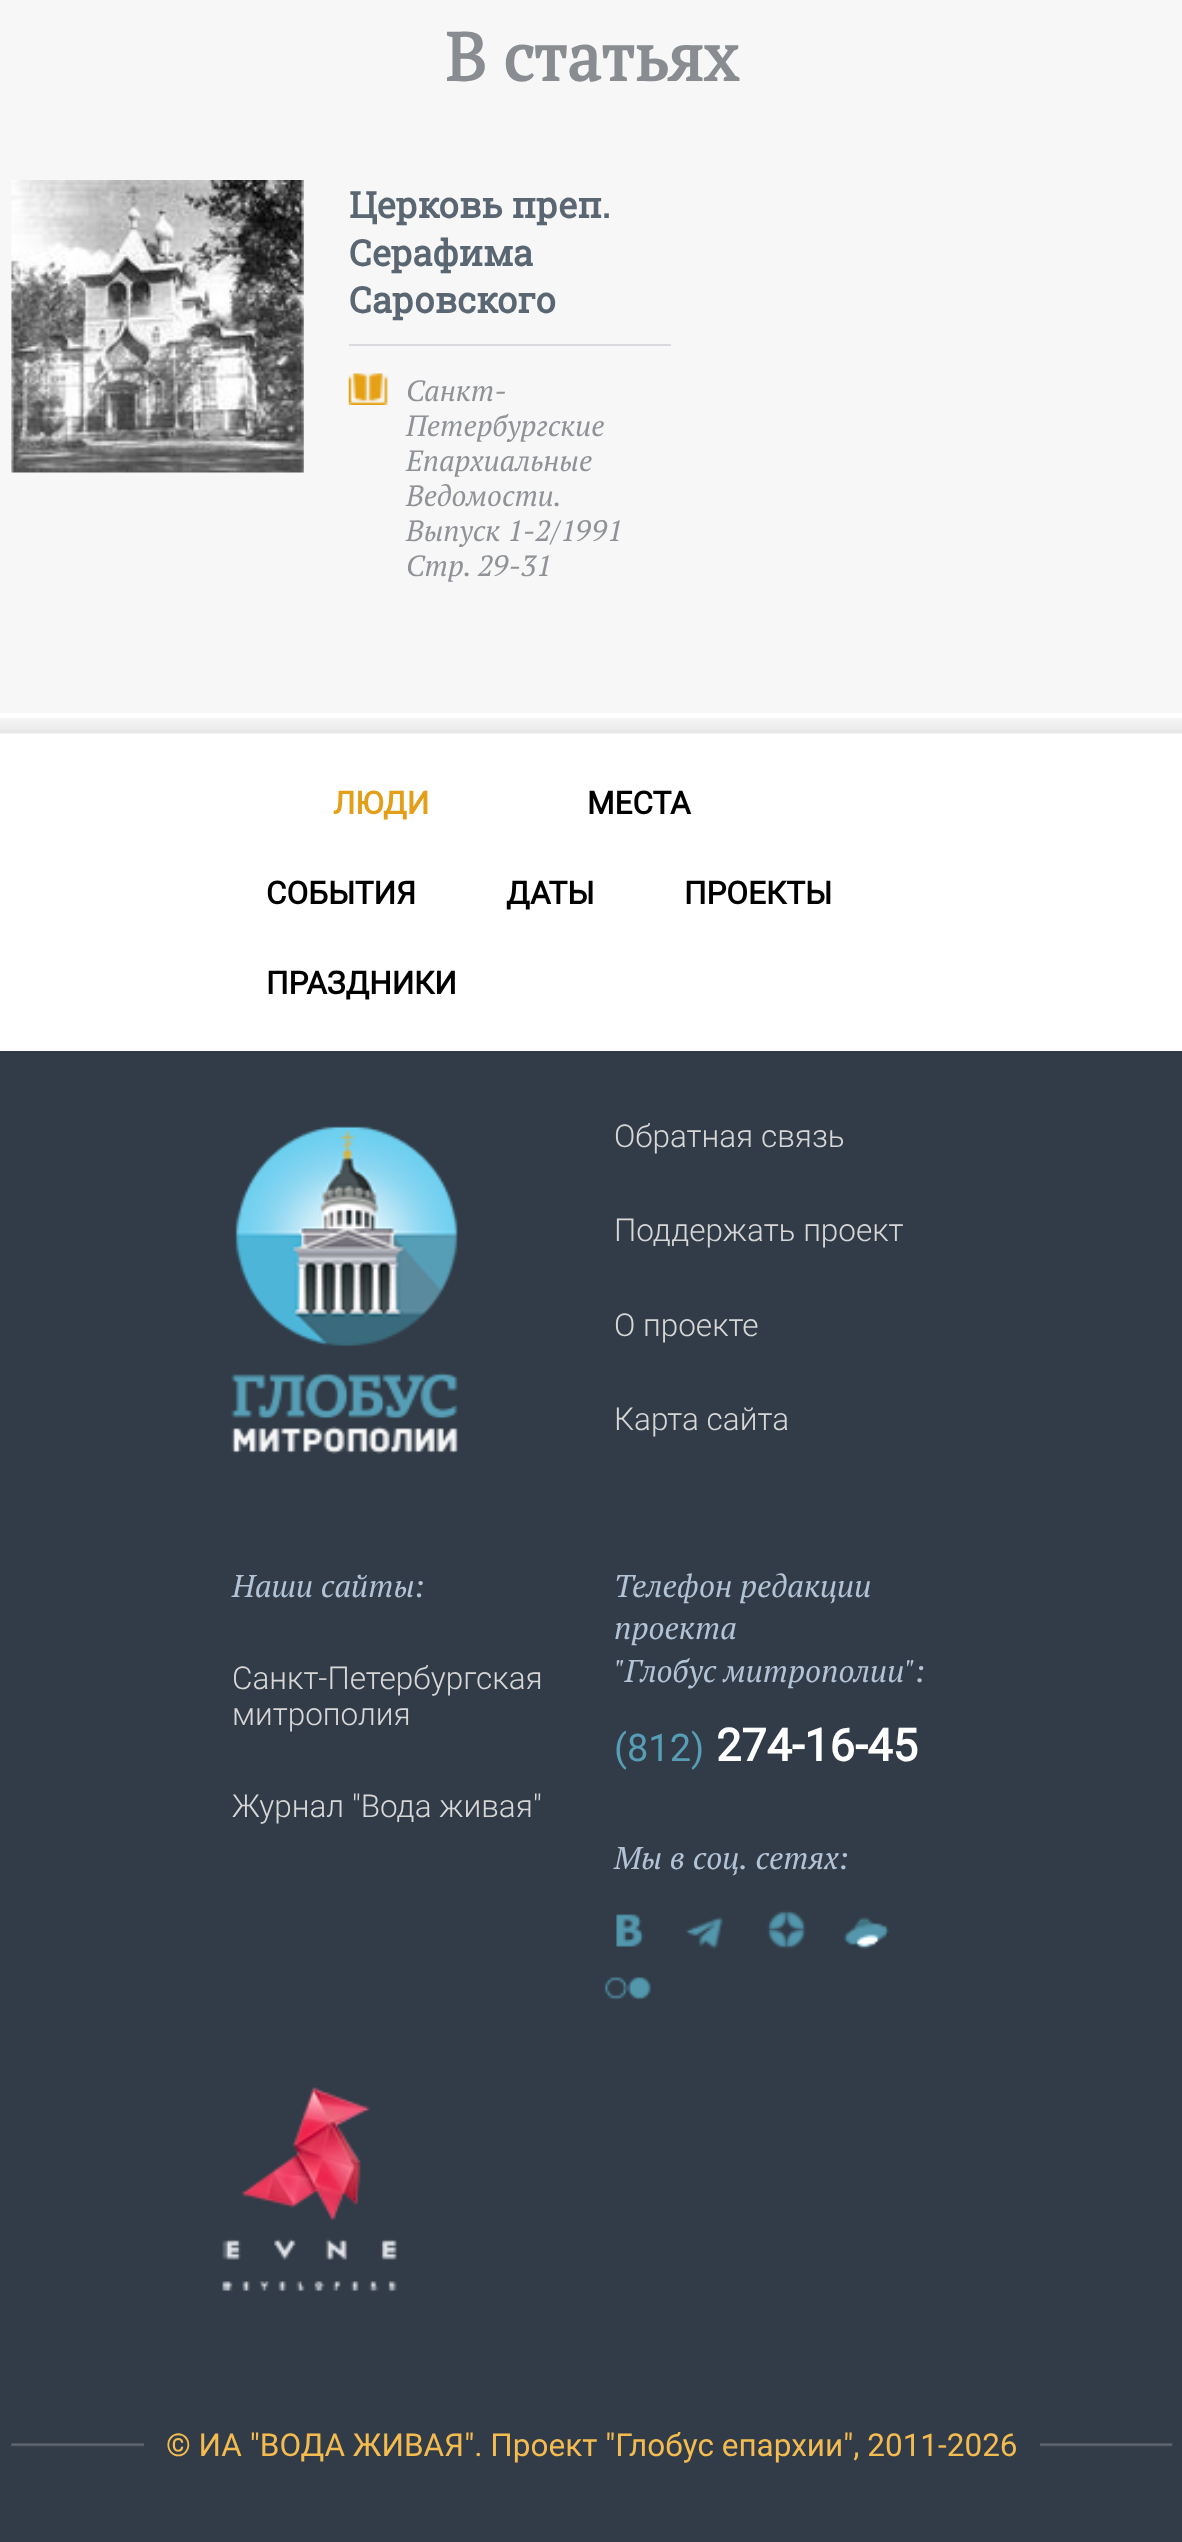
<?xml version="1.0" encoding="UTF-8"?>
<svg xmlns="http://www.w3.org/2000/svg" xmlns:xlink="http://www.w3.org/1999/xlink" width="1182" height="2542">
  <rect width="100%" height="100%" fill="#ffffff" />
  <rect width="1182" height="713" fill="#f7f7f7" />
  <image x="11" y="180" width="293" height="293" xlink:href="image1.png" />
  <rect x="349" y="344" width="322" height="2" fill="#d8dadd" />
  <image x="348" y="373" width="40" height="32" xlink:href="image2.png" />
  <image x="0" y="718" width="1182" height="16" xlink:href="image3.png" />
  <rect y="1051" width="1182" height="1491" fill="#323c48" />
  <image x="231" y="1126" width="227" height="328" xlink:href="image4.png" />
  <image x="616" y="1914" width="28" height="33" xlink:href="image5.png" />
  <image x="686" y="1916" width="37" height="33" xlink:href="image6.png" />
  <image x="767" y="1910" width="39" height="39" xlink:href="image7.png" />
  <image x="843" y="1916" width="47" height="33" xlink:href="image8.png" />
  <image x="604" y="1976" width="47" height="25" xlink:href="image9.png" />
  <image x="222" y="2087" width="175" height="205" xlink:href="image10.png" />
  <image x="11" y="2443" width="1162" height="4" xlink:href="image11.png" />
  <rect x="144" y="2443" width="896" height="4" fill="#323c48" />
  <text x="445" y="81" style="font-family: PT Serif; font-size: 67.5px; font-weight: bold; fill: #898d92">В статьях</text>
  <text x="349" y="218" style="font-family: Roboto Slab; font-size: 36px; font-weight: bold; fill: #5a6773">Церковь преп.</text>
  <text x="349" y="266" style="font-family: Roboto Slab; font-size: 36px; font-weight: bold; fill: #5a6773">Серафима</text>
  <text x="349" y="313" style="font-family: Roboto Slab; font-size: 36px; font-weight: bold; fill: #5a6773">Саровского</text>
  <text x="406" y="401" style="font-family: PT Serif; font-size: 29.25px; font-style: italic; fill: #8f9398">Санкт-</text>
  <text x="406" y="436" style="font-family: PT Serif; font-size: 29.25px; font-style: italic; fill: #8f9398">Петербургские</text>
  <text x="406" y="471" style="font-family: PT Serif; font-size: 29.25px; font-style: italic; fill: #8f9398">Епархиальные</text>
  <text x="406" y="506" style="font-family: PT Serif; font-size: 29.25px; font-style: italic; fill: #8f9398">Ведомости.</text>
  <text x="406" y="541" style="font-family: PT Serif; font-size: 29.25px; font-style: italic; fill: #8f9398">Выпуск 1-2/1991</text>
  <text x="406" y="576" word-spacing="-1" style="font-family: PT Serif; font-size: 29.25px; font-style: italic; fill: #8f9398">Стр. 29-31</text>
  <text x="333" y="814" style="font-family: Roboto; font-size: 31.5px; font-weight: bold; fill: #e49f1a">ЛЮДИ</text>
  <text x="587" y="814" style="font-family: Roboto; font-size: 31.5px; font-weight: bold; fill: #000000">МЕСТА</text>
  <text x="266" y="904" style="font-family: Roboto; font-size: 31.5px; font-weight: bold; fill: #000000">СОБЫТИЯ</text>
  <text x="506" y="904" style="font-family: Roboto; font-size: 31.5px; font-weight: bold; fill: #000000">ДАТЫ</text>
  <text x="684" y="904" style="font-family: Roboto; font-size: 31.5px; font-weight: bold; fill: #000000">ПРОЕКТЫ</text>
  <text x="266" y="994" style="font-family: Roboto; font-size: 31.5px; font-weight: bold; fill: #000000">ПРАЗДНИКИ</text>
  <text x="614" y="1147" style="font-family: Roboto; font-size: 31.5px; font-weight: 300; fill: #d7d7d7">Обратная связь</text>
  <text x="614" y="1241" style="font-family: Roboto; font-size: 31.5px; font-weight: 300; fill: #d7d7d7">Поддержать проект</text>
  <text x="614" y="1336" style="font-family: Roboto; font-size: 31.5px; font-weight: 300; fill: #d7d7d7">О проекте</text>
  <text x="614" y="1430" style="font-family: Roboto; font-size: 31.5px; font-weight: 300; fill: #d7d7d7">Карта сайта</text>
  <text x="232" y="1597" style="font-family: PT Serif; font-size: 31.5px; font-style: italic; fill: #b3c3d6">Наши сайты:</text>
  <text x="232" y="1689" style="font-family: Roboto; font-size: 31.5px; font-weight: 300; fill: #d7d7d7">Санкт-Петербургская</text>
  <text x="232" y="1725" style="font-family: Roboto; font-size: 31.5px; font-weight: 300; fill: #d7d7d7">митрополия</text>
  <text x="232" y="1817" style="font-family: Roboto; font-size: 31.5px; font-weight: 300; fill: #d7d7d7">Журнал "Вода живая"</text>
  <text x="614" y="1597" style="font-family: PT Serif; font-size: 31.5px; font-style: italic; fill: #b3c3d6">Телефон редакции</text>
  <text x="614" y="1639" style="font-family: PT Serif; font-size: 31.5px; font-style: italic; fill: #b3c3d6">проекта</text>
  <text x="614" y="1682" style="font-family: PT Serif; font-size: 31.5px; font-style: italic; fill: #b3c3d6">"Глобус митрополии":</text>
  <text x="614" y="1761" style="font-family: Roboto; font-size: 38px; fill: #579db5">(812)</text>
  <text x="716" y="1761" style="font-family: Roboto; font-size: 45px; font-weight: bold; fill: #ffffff">274-16-45</text>
  <text x="614" y="1869" style="font-family: PT Serif; font-size: 31.5px; font-style: italic; fill: #b3c3d6">Мы в соц. сетях:</text>
  <text x="166" y="2456" style="font-family: Roboto; font-size: 31.5px; fill: #f4bc50">© ИА "ВОДА ЖИВАЯ". Проект "Глобус епархии", 2011-2026</text>
</svg>
